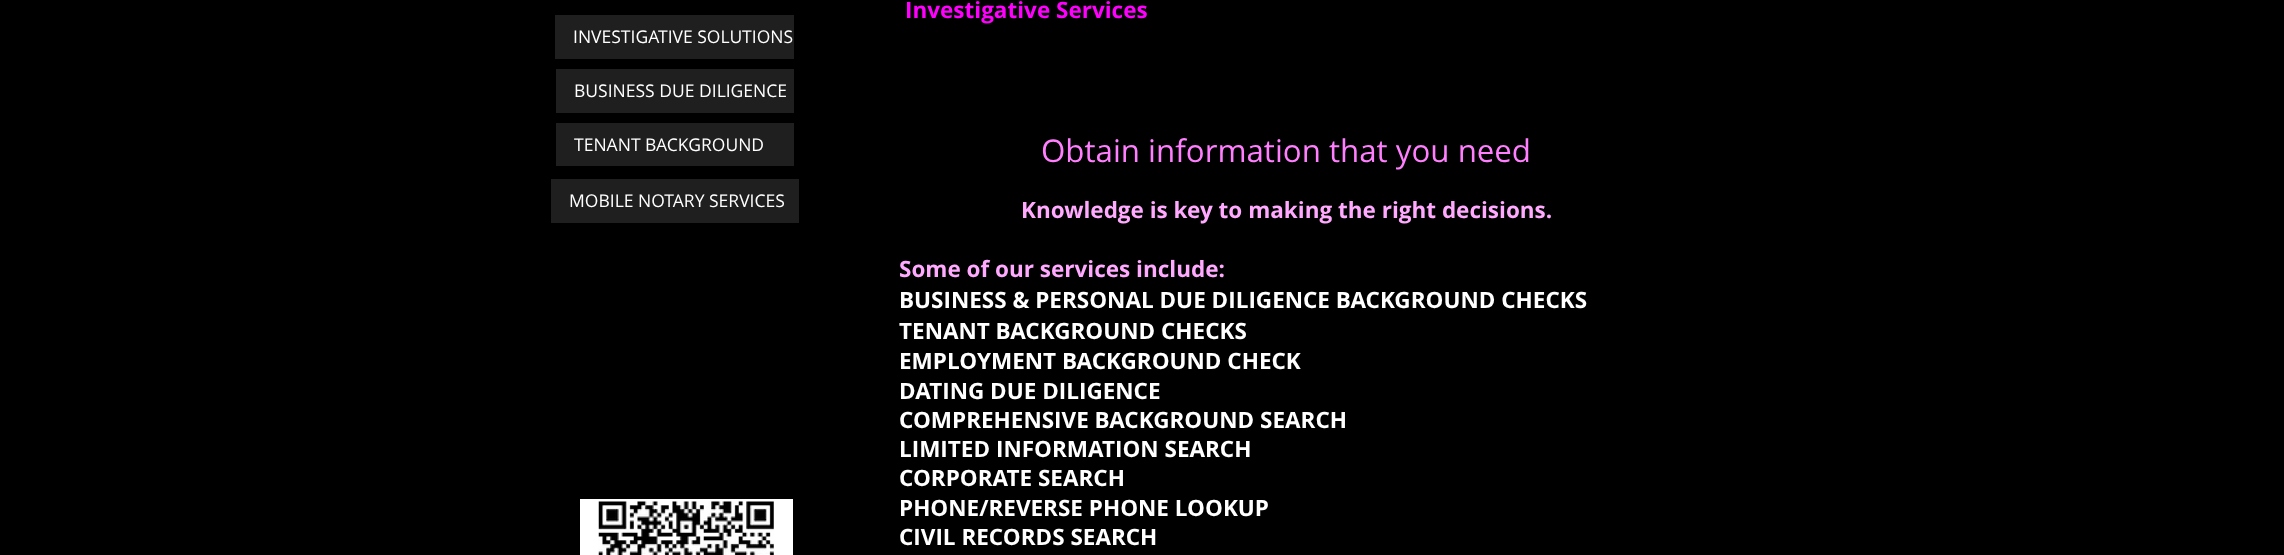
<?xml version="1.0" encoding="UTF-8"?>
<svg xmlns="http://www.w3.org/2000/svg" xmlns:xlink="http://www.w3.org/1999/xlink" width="2284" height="555">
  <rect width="100%" height="100%" fill="#000000" />
  <rect x="555" y="15" width="239" height="44" fill="#1f1f1f" />
  <rect x="580" y="499" width="213" height="56" fill="#ffffff" />
  <image x="598" y="501" width="176" height="54" xlink:href="image1.png" />
  <rect x="556" y="69" width="238" height="44" fill="#1f1f1f" />
  <rect x="556" y="123" width="238" height="43" fill="#1f1f1f" />
  <rect x="551" y="179" width="248" height="44" fill="#1f1f1f" />
  <text x="573" y="43" style="font-family: Open Sans; font-size: 17.5px; fill: #ffffff">INVESTIGATIVE SOLUTIONS</text>
  <text x="905" y="18" style="font-family: Open Sans; font-size: 22.5px; font-weight: bold; fill: #ff00ff">Investigative Services</text>
  <text x="1041" y="162" style="font-family: Open Sans; font-size: 31.25px; fill: #ff7fff">Obtain information that you need</text>
  <text x="1021" y="218" style="font-family: Open Sans; font-size: 22.5px; font-weight: bold; fill: #ffaaff">Knowledge is key to making the right decisions.</text>
  <text x="899" y="277" style="font-family: Open Sans; font-size: 22.5px; font-weight: bold; fill: #ffaaff">Some of our services include:</text>
  <text x="899" y="308" style="font-family: Open Sans; font-size: 22.5px; font-weight: bold; fill: #ffffff">BUSINESS &amp; PERSONAL DUE DILIGENCE BACKGROUND CHECKS</text>
  <text x="899" y="339" style="font-family: Open Sans; font-size: 22.5px; font-weight: bold; fill: #ffffff">TENANT BACKGROUND CHECKS</text>
  <text x="899" y="369" style="font-family: Open Sans; font-size: 22.5px; font-weight: bold; fill: #ffffff">EMPLOYMENT BACKGROUND CHECK</text>
  <text x="899" y="399" style="font-family: Open Sans; font-size: 22.5px; font-weight: bold; fill: #ffffff">DATING DUE DILIGENCE</text>
  <text x="899" y="428" style="font-family: Open Sans; font-size: 22.5px; font-weight: bold; fill: #ffffff">COMPREHENSIVE BACKGROUND SEARCH</text>
  <text x="899" y="457" style="font-family: Open Sans; font-size: 22.5px; font-weight: bold; fill: #ffffff">LIMITED INFORMATION SEARCH</text>
  <text x="899" y="486" style="font-family: Open Sans; font-size: 22.5px; font-weight: bold; fill: #ffffff">CORPORATE SEARCH</text>
  <text x="899" y="516" style="font-family: Open Sans; font-size: 22.5px; font-weight: bold; fill: #ffffff">PHONE/REVERSE PHONE LOOKUP</text>
  <text x="899" y="545" style="font-family: Open Sans; font-size: 22.5px; font-weight: bold; fill: #ffffff">CIVIL RECORDS SEARCH</text>
  <text x="574" y="97" style="font-family: Open Sans; font-size: 17.5px; fill: #ffffff">BUSINESS DUE DILIGENCE</text>
  <text x="574" y="151" style="font-family: Open Sans; font-size: 17.5px; fill: #ffffff">TENANT BACKGROUND</text>
  <text x="569" y="207" style="font-family: Open Sans; font-size: 17.5px; fill: #ffffff">MOBILE NOTARY SERVICES</text>
</svg>
